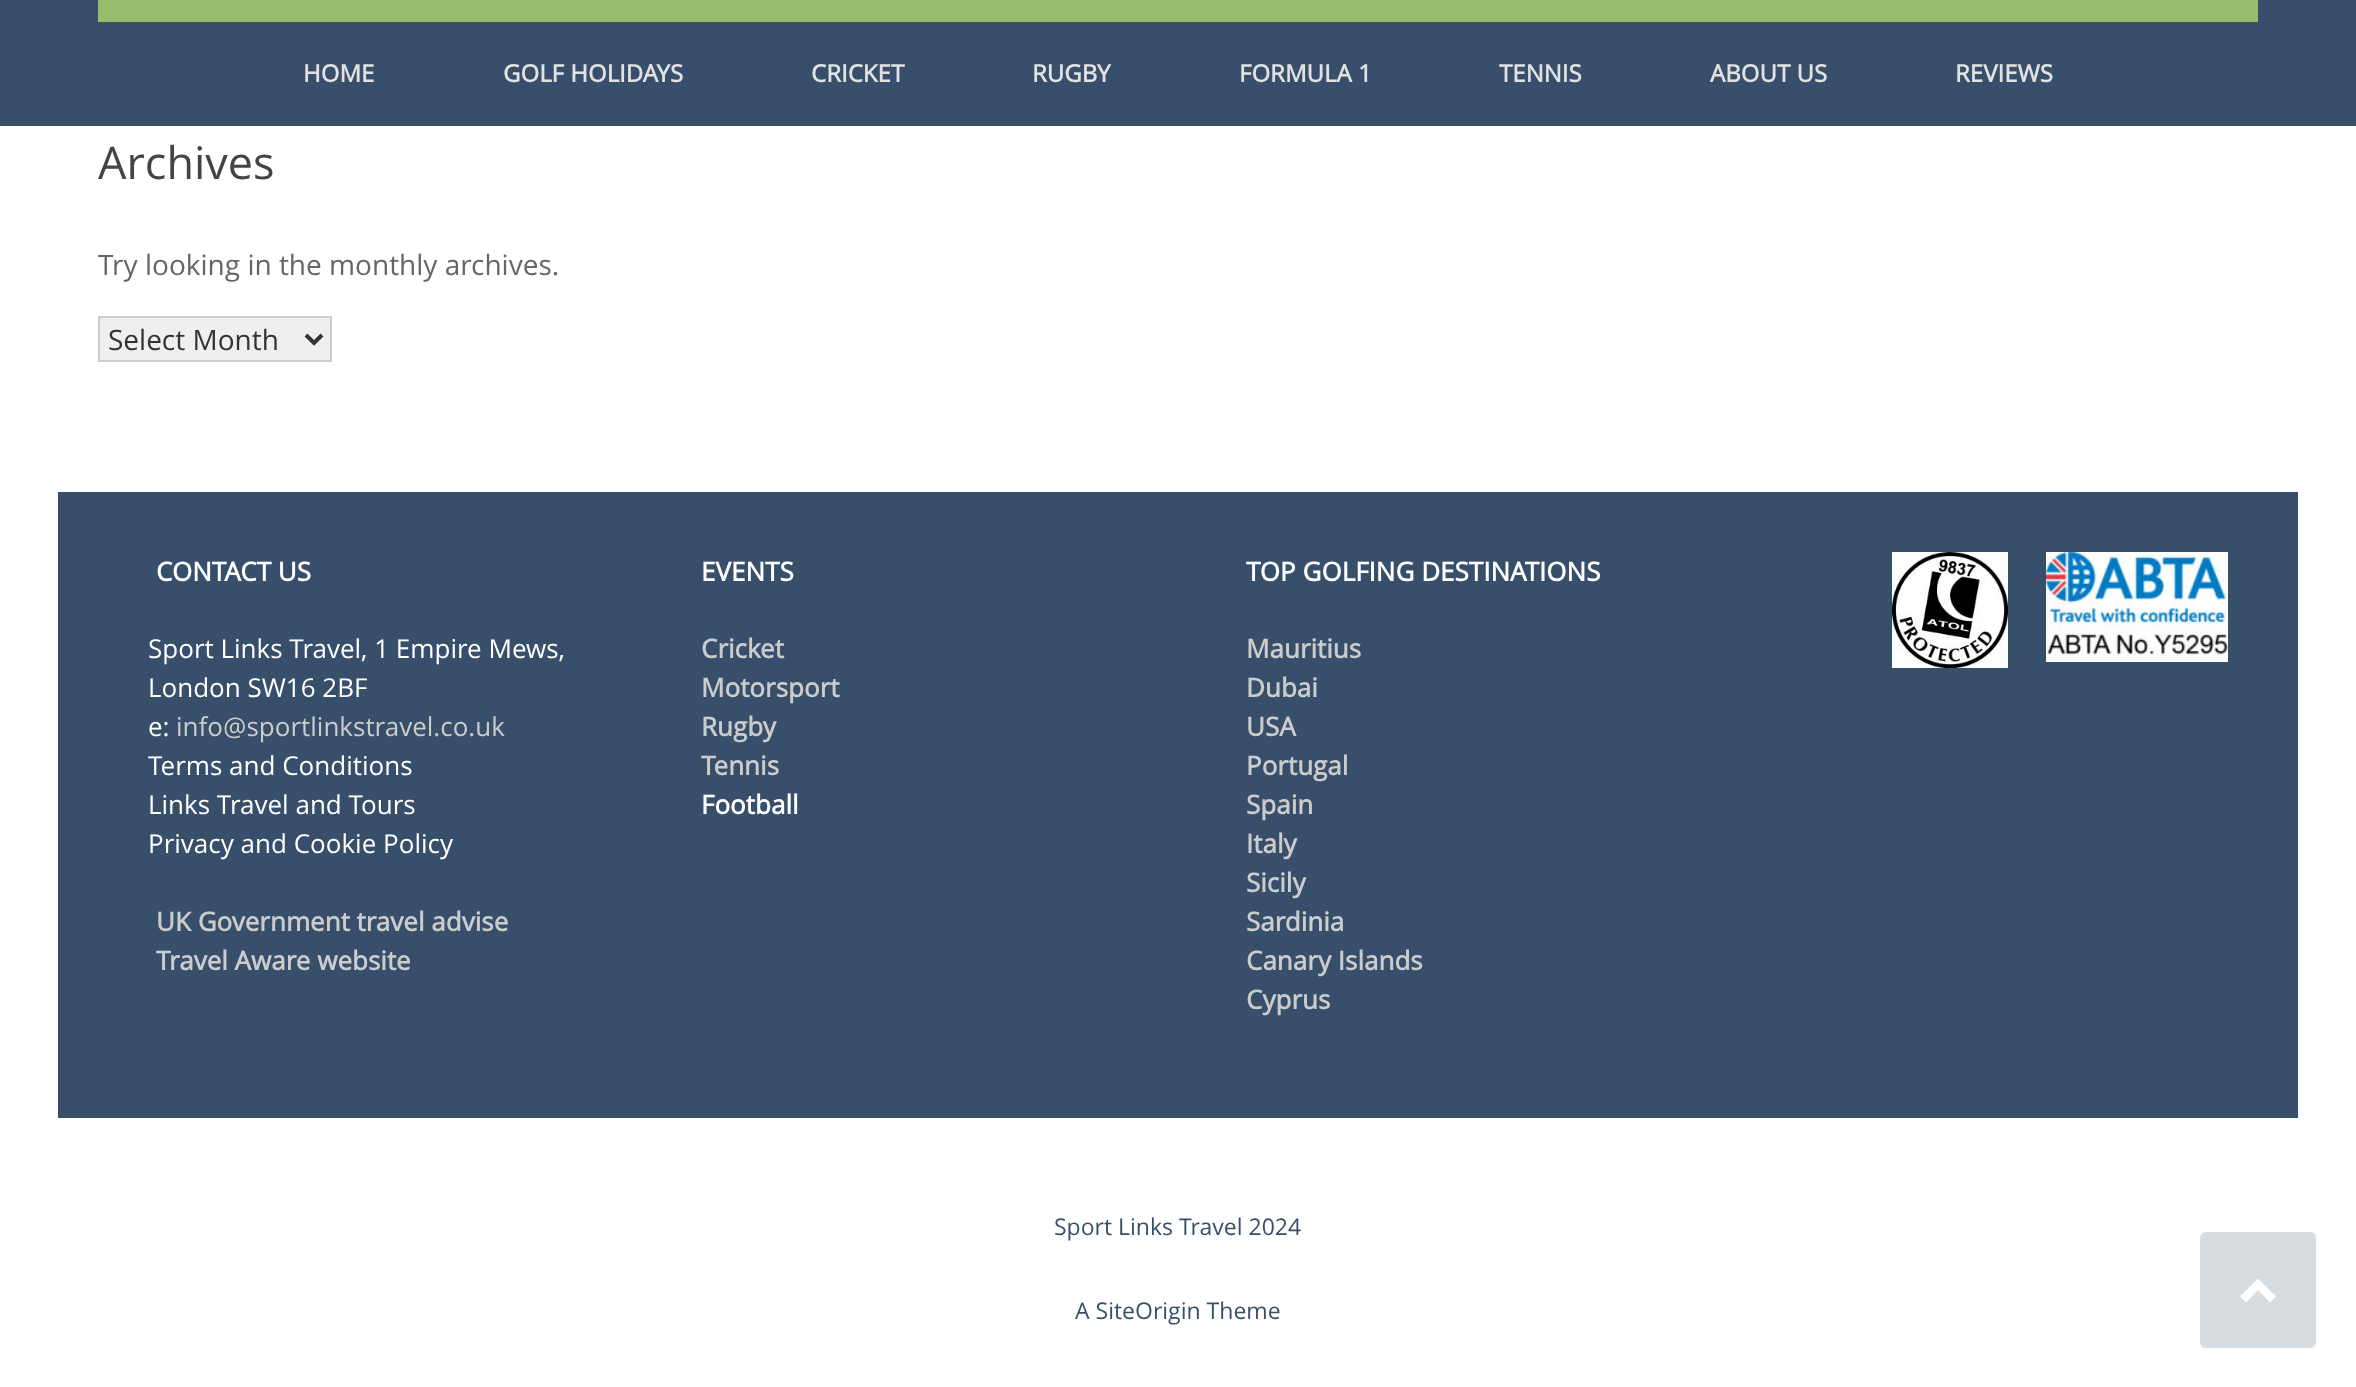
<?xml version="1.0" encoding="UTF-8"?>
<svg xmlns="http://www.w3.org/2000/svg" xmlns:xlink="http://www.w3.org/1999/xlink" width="2356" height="1387">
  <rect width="100%" height="100%" fill="#ffffff" />
  <rect width="2356" height="126" fill="#384f6b" />
  <rect x="98" width="2160" height="22" fill="#96bc6d" />
  <rect x="99" y="317" width="232" height="44" fill="#efefef" stroke="#cccccc" stroke-width="2" />
  <path d="M 306 335 l 8 8 l 8 -8" fill="none" stroke="#333333" stroke-width="4" />
  <rect x="58" y="492" width="2240" height="626" fill="#384f6b" />
  <image x="1892" y="552" width="116" height="116" xlink:href="image1.png" />
  <image x="2046" y="552" width="182" height="110" xlink:href="image2.png" />
  <rect x="2200" y="1232" width="116" height="116" rx="6" fill="#d7dce1" />
  <path d="M 2276 1296.5 l -18 -18 l -18 18 l 6 6 l 12 -12.5 l 12 12.5 z" fill="#ffffff" />
  <text x="303" y="82" style="font-family: Open Sans; font-size: 24px; font-weight: bold; fill: #e2e2e2">HOME</text>
  <text x="503" y="82" style="font-family: Open Sans; font-size: 24px; font-weight: bold; fill: #e2e2e2">GOLF HOLIDAYS</text>
  <text x="811" y="82" style="font-family: Open Sans; font-size: 24px; font-weight: bold; fill: #e2e2e2">CRICKET</text>
  <text x="1032" y="82" style="font-family: Open Sans; font-size: 24px; font-weight: bold; fill: #e2e2e2">RUGBY</text>
  <text x="1239" y="82" style="font-family: Open Sans; font-size: 24px; font-weight: bold; fill: #e2e2e2">FORMULA 1</text>
  <text x="1499" y="82" style="font-family: Open Sans; font-size: 24px; font-weight: bold; fill: #e2e2e2">TENNIS</text>
  <text x="1710" y="82" style="font-family: Open Sans; font-size: 24px; font-weight: bold; fill: #e2e2e2">ABOUT US</text>
  <text x="1955" y="82" style="font-family: Open Sans; font-size: 24px; font-weight: bold; fill: #e2e2e2">REVIEWS</text>
  <text x="98" y="179" style="font-family: 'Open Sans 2'; font-size: 45px; fill: #444444">Archives</text>
  <text x="98" y="275" style="font-family: Open Sans; font-size: 28px; fill: #666666">Try looking in the monthly archives.</text>
  <text x="108" y="350" style="font-family: 'Open Sans 2'; font-size: 28px; fill: #333333">Select Month</text>
  <text x="156" y="581" style="font-family: Open Sans; font-size: 26px; font-weight: bold; fill: #ffffff">CONTACT US</text>
  <text x="148" y="658" style="font-family: Open Sans; font-size: 26px; fill: #ffffff">Sport Links Travel, 1 Empire Mews,</text>
  <text x="148" y="697" style="font-family: Open Sans; font-size: 26px; fill: #ffffff">London SW16 2BF</text>
  <text x="148" y="736" style="font-family: Open Sans; font-size: 26px; fill: #ffffff">e:</text>
  <text x="176" y="736" style="font-family: Open Sans; font-size: 26px; fill: #cccccc">info@sportlinkstravel.co.uk</text>
  <text x="148" y="775" style="font-family: Open Sans; font-size: 26px; fill: #ffffff">Terms and Conditions</text>
  <text x="148" y="814" style="font-family: Open Sans; font-size: 26px; fill: #ffffff">Links Travel and Tours</text>
  <text x="148" y="853" style="font-family: Open Sans; font-size: 26px; fill: #ffffff">Privacy and Cookie Policy</text>
  <text x="156" y="931" style="font-family: Open Sans; font-size: 26px; font-weight: bold; fill: #cccccc">UK Government travel advise</text>
  <text x="156" y="970" style="font-family: Open Sans; font-size: 26px; font-weight: bold; fill: #cccccc">Travel Aware website</text>
  <text x="701" y="581" style="font-family: Open Sans; font-size: 26px; font-weight: bold; fill: #ffffff">EVENTS</text>
  <text x="701" y="658" style="font-family: Open Sans; font-size: 26px; font-weight: bold; fill: #cccccc">Cricket</text>
  <text x="701" y="697" style="font-family: Open Sans; font-size: 26px; font-weight: bold; fill: #cccccc">Motorsport</text>
  <text x="701" y="736" style="font-family: Open Sans; font-size: 26px; font-weight: bold; fill: #cccccc">Rugby</text>
  <text x="701" y="775" style="font-family: Open Sans; font-size: 26px; font-weight: bold; fill: #cccccc">Tennis</text>
  <text x="701" y="814" style="font-family: Open Sans; font-size: 26px; font-weight: bold; fill: #ffffff">Football</text>
  <text x="1246" y="581" style="font-family: Open Sans; font-size: 26px; font-weight: bold; fill: #ffffff">TOP GOLFING DESTINATIONS</text>
  <text x="1246" y="658" style="font-family: Open Sans; font-size: 26px; font-weight: bold; fill: #cccccc">Mauritius</text>
  <text x="1246" y="697" style="font-family: Open Sans; font-size: 26px; font-weight: bold; fill: #cccccc">Dubai</text>
  <text x="1246" y="736" style="font-family: Open Sans; font-size: 26px; font-weight: bold; fill: #cccccc">USA</text>
  <text x="1246" y="775" style="font-family: Open Sans; font-size: 26px; font-weight: bold; fill: #cccccc">Portugal</text>
  <text x="1246" y="814" style="font-family: Open Sans; font-size: 26px; font-weight: bold; fill: #cccccc">Spain</text>
  <text x="1246" y="853" style="font-family: Open Sans; font-size: 26px; font-weight: bold; fill: #cccccc">Italy</text>
  <text x="1246" y="892" style="font-family: Open Sans; font-size: 26px; font-weight: bold; fill: #cccccc">Sicily</text>
  <text x="1246" y="931" style="font-family: Open Sans; font-size: 26px; font-weight: bold; fill: #cccccc">Sardinia</text>
  <text x="1246" y="970" style="font-family: Open Sans; font-size: 26px; font-weight: bold; fill: #cccccc">Canary Islands</text>
  <text x="1246" y="1009" style="font-family: Open Sans; font-size: 26px; font-weight: bold; fill: #cccccc">Cyprus</text>
  <text x="1054" y="1235" style="font-family: Open Sans; font-size: 23px; fill: #384f6b">Sport Links Travel 2024</text>
  <text x="1075" y="1319" style="font-family: Open Sans; font-size: 23px; fill: #384f6b">A SiteOrigin Theme</text>
</svg>
